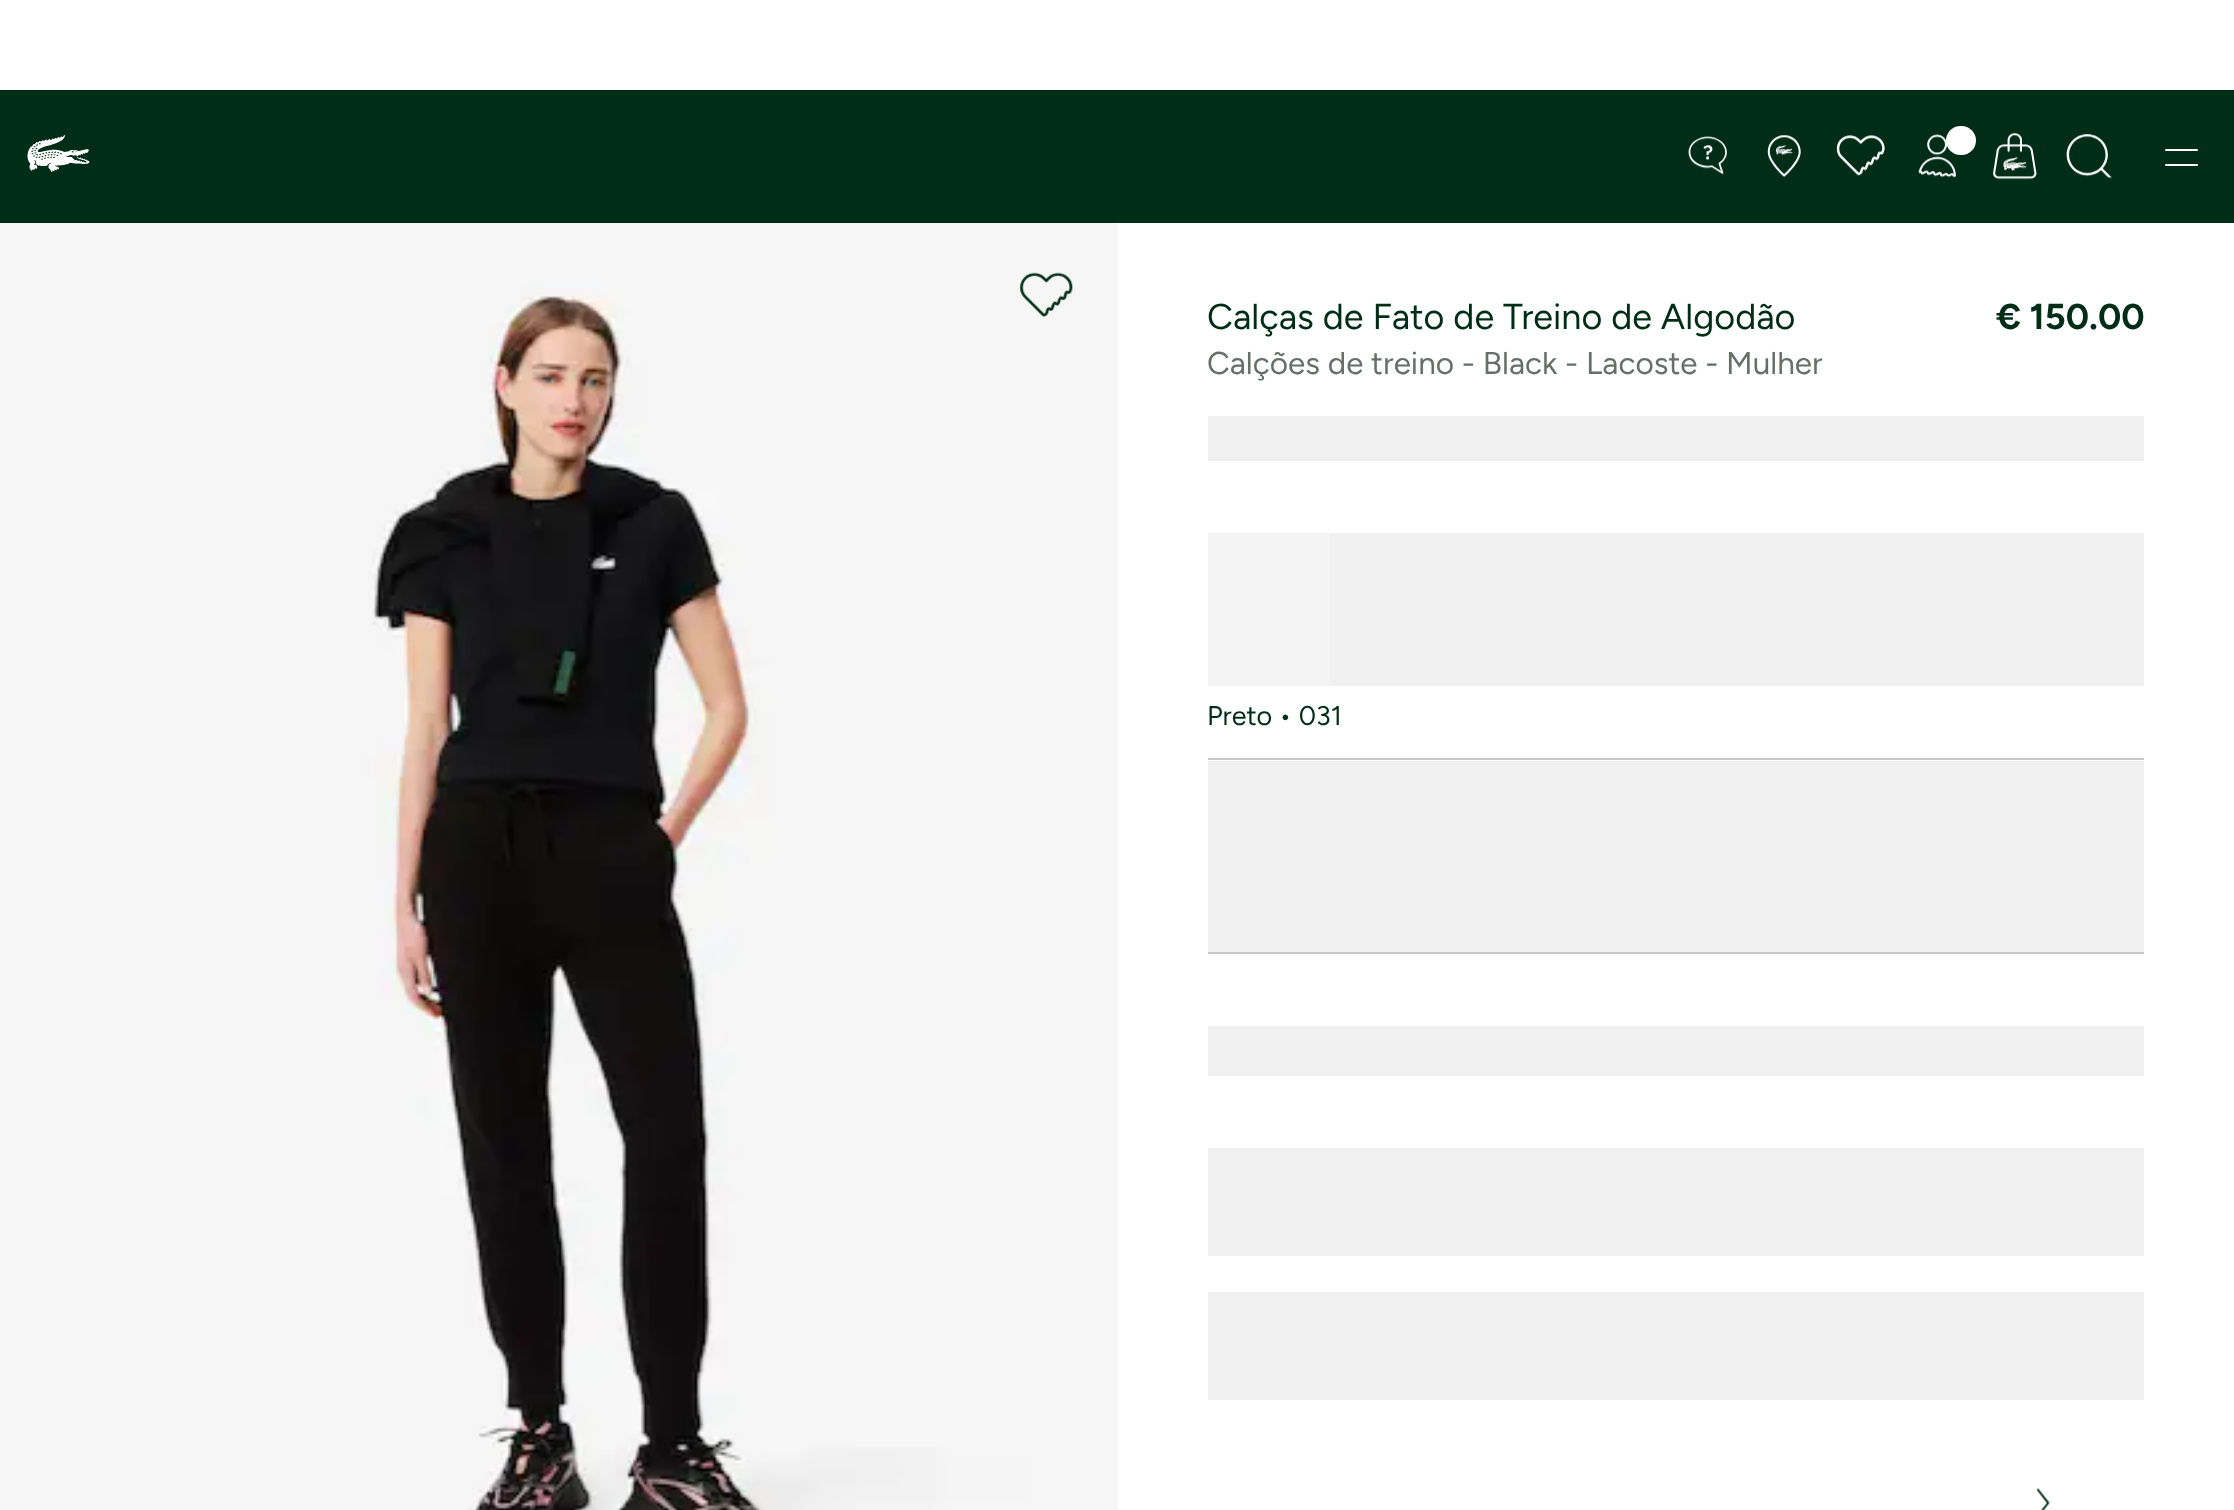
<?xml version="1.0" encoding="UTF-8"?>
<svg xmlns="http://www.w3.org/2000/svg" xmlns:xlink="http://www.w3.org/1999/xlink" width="2234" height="1510">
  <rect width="100%" height="100%" fill="#ffffff" />
  <rect y="90" width="2234" height="133" fill="#002d18" />
  <image x="27" y="135" width="63" height="37" xlink:href="image1.png" />
  <image x="1688" y="136" width="39" height="39" xlink:href="image2.png" />
  <image x="1767" y="135" width="34" height="43" xlink:href="image3.png" />
  <image x="1836" y="135" width="49" height="41" xlink:href="image4.png" />
  <image x="1918" y="134" width="38" height="44" xlink:href="image5.png" />
  <rect x="1946" y="126" width="30" height="29" rx="14.5" fill="#ffffff" />
  <image x="1993" y="133" width="44" height="47" xlink:href="image6.png" />
  <image x="2066" y="134" width="46" height="45" xlink:href="image7.png" />
  <rect x="2165" y="149" width="33" height="2" rx="1" fill="#ffffff" />
  <rect x="2165" y="164" width="33" height="2" rx="1" fill="#ffffff" />
  <image x="0" y="223" width="1118" height="1287" xlink:href="image8.png" />
  <image x="1019" y="272" width="54" height="45" xlink:href="image9.png" />
  <rect x="1208" y="416" width="936" height="45" fill="#f0f0f0" />
  <rect x="1330" y="533" width="814" height="153" fill="#f0f0f0" />
  <rect x="1208" y="533" width="122" height="153" fill="#f4f4f4" />
  <rect x="1208" y="758" width="936" height="2" fill="#c8c8c8" />
  <rect x="1208" y="761" width="936" height="191" fill="#f0f0f0" />
  <rect x="1208" y="952" width="936" height="2" fill="#c8c8c8" />
  <rect x="1208" y="1026" width="936" height="50" fill="#f0f0f0" />
  <rect x="1208" y="1148" width="936" height="108" fill="#f0f0f0" />
  <rect x="1208" y="1292" width="936" height="108" fill="#f0f0f0" />
  <image x="2036" y="1488" width="14" height="22" xlink:href="image10.png" />
  <text x="1207" y="329" style="font-family: Figtree; font-size: 36px; fill: #002d18">Calças de Fato de Treino de Algodão</text>
  <text x="1207" y="374" style="font-family: Figtree; font-size: 31.5px; fill: #66706b">Calções de treino - Black - Lacoste - Mulher</text>
  <text x="1996" y="329" style="font-family: Figtree; font-size: 36px; font-weight: bold; fill: #002d18">€ 150.00</text>
  <text x="1207" y="725" style="font-family: Figtree; font-size: 27px; fill: #002d18">Preto • 031</text>
</svg>
